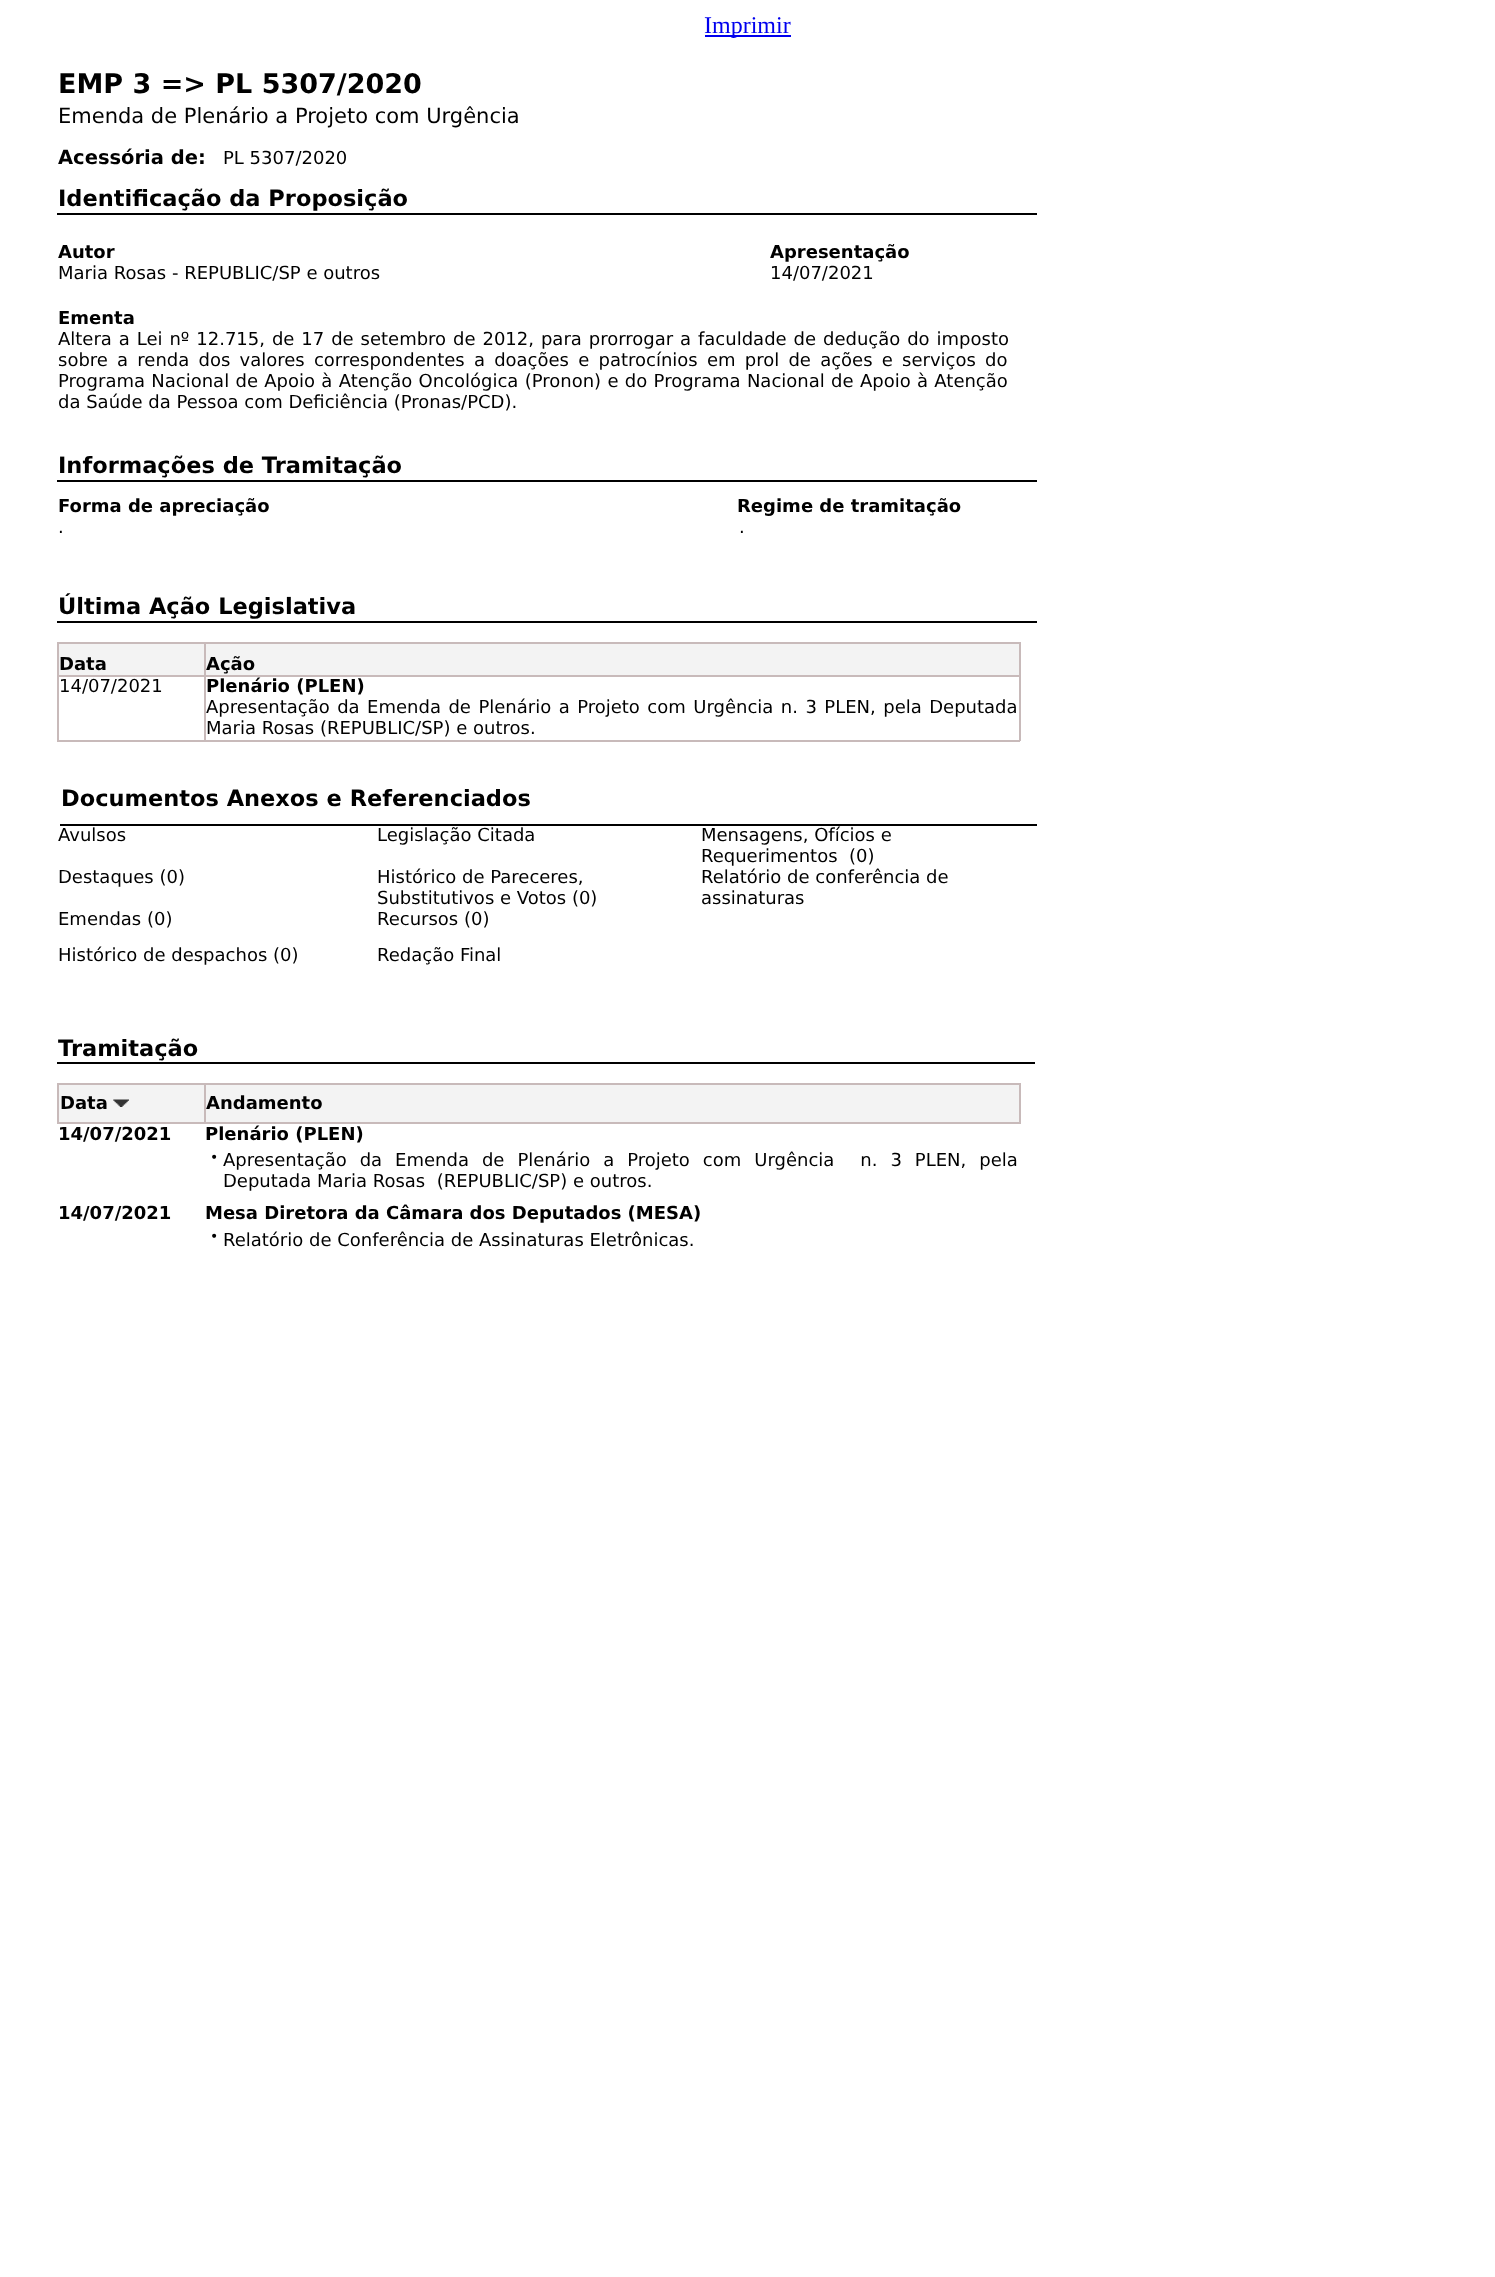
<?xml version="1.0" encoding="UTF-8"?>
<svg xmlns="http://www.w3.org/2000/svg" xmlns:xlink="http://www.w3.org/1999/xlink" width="1495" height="2277">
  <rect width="100%" height="100%" fill="#ffffff" />
  <rect x="705" y="35" width="86" height="2" fill="#0000ee" />
  <rect x="57" y="213" width="980" height="2" fill="#000000" />
  <rect x="57" y="480" width="980" height="2" fill="#000000" />
  <rect x="57" y="621" width="980" height="2" fill="#000000" />
  <rect x="59" y="644" width="145" height="31" fill="#f3f3f3" />
  <rect x="204" y="642" width="816" height="2" fill="#c8baba" />
  <rect x="204" y="675" width="816" height="2" fill="#c8baba" />
  <rect x="1019" y="675" width="2" height="66" fill="#c8baba" />
  <rect x="204" y="740" width="816" height="2" fill="#c8baba" />
  <rect x="204" y="675" width="2" height="66" fill="#c8baba" />
  <rect x="57" y="675" width="149" height="2" fill="#c8baba" />
  <rect x="204" y="642" width="2" height="35" fill="#c8baba" />
  <rect x="57" y="642" width="149" height="2" fill="#c8baba" />
  <rect x="57" y="740" width="149" height="2" fill="#c8baba" />
  <rect x="57" y="675" width="2" height="66" fill="#c8baba" />
  <rect x="57" y="642" width="2" height="35" fill="#c8baba" />
  <rect x="206" y="644" width="813" height="31" fill="#f3f3f3" />
  <rect x="1019" y="642" width="2" height="35" fill="#c8baba" />
  <rect x="60" y="824" width="977" height="2" fill="#000000" />
  <rect x="57" y="1062" width="978" height="2" fill="#000000" />
  <rect x="204" y="1083" width="816" height="2" fill="#c8baba" />
  <rect x="1019" y="1083" width="2" height="41" fill="#c8baba" />
  <rect x="204" y="1122" width="816" height="2" fill="#c8baba" />
  <rect x="204" y="1083" width="2" height="41" fill="#c8baba" />
  <rect x="57" y="1083" width="149" height="2" fill="#c8baba" />
  <rect x="57" y="1122" width="149" height="2" fill="#c8baba" />
  <rect x="59" y="1085" width="145" height="37" fill="#f3f3f3" />
  <rect x="57" y="1083" width="2" height="41" fill="#c8baba" />
  <image x="113" y="1099" width="16" height="8" xlink:href="image1.png" />
  <rect x="206" y="1085" width="813" height="37" fill="#f3f3f3" />
  <text x="704" y="33" style="font-family: Liberation Serif; font-size: 24px; fill: #0000ee">Imprimir</text>
  <text x="58" y="93" style="font-family: DejaVu Sans; font-size: 27px; font-weight: bold; fill: #000000">EMP 3 =&gt; PL 5307/2020</text>
  <text x="58" y="123" style="font-family: DejaVu Sans; font-size: 21px; fill: #000000">Emenda de Plenário a Projeto com Urgência</text>
  <text x="58" y="164" style="font-family: DejaVu Sans; font-size: 19.5px; font-weight: bold; fill: #000000">Acessória de:</text>
  <text x="223" y="164" style="font-family: DejaVu Sans; font-size: 18px; fill: #000000">PL 5307/2020</text>
  <text x="58" y="206" style="font-family: DejaVu Sans; font-size: 22.5px; font-weight: bold; fill: #000000">Identificação da Proposição</text>
  <text x="58" y="258" style="font-family: DejaVu Sans; font-size: 18px; font-weight: bold; fill: #000000">Autor</text>
  <text x="770" y="258" style="font-family: DejaVu Sans; font-size: 18px; font-weight: bold; fill: #000000">Apresentação</text>
  <text x="58" y="279" style="font-family: DejaVu Sans; font-size: 18px; fill: #000000">Maria Rosas - REPUBLIC/SP e outros</text>
  <text x="770" y="279" style="font-family: DejaVu Sans; font-size: 18px; fill: #000000">14/07/2021</text>
  <text x="58" y="324" style="font-family: DejaVu Sans; font-size: 18px; font-weight: bold; fill: #000000">Ementa</text>
  <text x="58" y="345" word-spacing="1.2" style="font-family: DejaVu Sans; font-size: 18px; fill: #000000">Altera a Lei nº 12.715, de 17 de setembro de 2012, para prorrogar a faculdade de dedução do imposto</text>
  <text x="58" y="366" word-spacing="3.5" style="font-family: DejaVu Sans; font-size: 18px; fill: #000000">sobre a renda dos valores correspondentes a doações e patrocínios em prol de ações e serviços do</text>
  <text x="58" y="387" word-spacing="0.6" style="font-family: DejaVu Sans; font-size: 18px; fill: #000000">Programa Nacional de Apoio à Atenção Oncológica (Pronon) e do Programa Nacional de Apoio à Atenção</text>
  <text x="58" y="408" style="font-family: DejaVu Sans; font-size: 18px; fill: #000000">da Saúde da Pessoa com Deficiência (Pronas/PCD).</text>
  <text x="58" y="473" style="font-family: DejaVu Sans; font-size: 22.5px; font-weight: bold; fill: #000000">Informações de Tramitação</text>
  <text x="58" y="512" style="font-family: DejaVu Sans; font-size: 18px; font-weight: bold; fill: #000000">Forma de apreciação</text>
  <text x="737" y="512" style="font-family: DejaVu Sans; font-size: 18px; font-weight: bold; fill: #000000">Regime de tramitação</text>
  <text x="58" y="533" style="font-family: DejaVu Sans; font-size: 18px; fill: #000000">.</text>
  <text x="739" y="533" style="font-family: DejaVu Sans; font-size: 18px; fill: #000000">.</text>
  <text x="58" y="614" style="font-family: DejaVu Sans; font-size: 22.5px; font-weight: bold; fill: #000000">Última Ação Legislativa</text>
  <text x="59" y="670" style="font-family: DejaVu Sans; font-size: 18px; font-weight: bold; fill: #000000">Data</text>
  <text x="206" y="670" style="font-family: DejaVu Sans; font-size: 18px; font-weight: bold; fill: #000000">Ação</text>
  <text x="59" y="692" style="font-family: DejaVu Sans; font-size: 18px; fill: #000000">14/07/2021</text>
  <text x="206" y="692" style="font-family: DejaVu Sans; font-size: 18px; font-weight: bold; fill: #000000">Plenário (PLEN)</text>
  <text x="206" y="713" word-spacing="1.75" style="font-family: DejaVu Sans; font-size: 18px; fill: #000000">Apresentação da Emenda de Plenário a Projeto com Urgência n. 3 PLEN, pela Deputada</text>
  <text x="206" y="734" style="font-family: DejaVu Sans; font-size: 18px; fill: #000000">Maria Rosas (REPUBLIC/SP) e outros.</text>
  <text x="61" y="806" style="font-family: DejaVu Sans; font-size: 22.5px; font-weight: bold; fill: #000000">Documentos Anexos e Referenciados</text>
  <text x="58" y="841" style="font-family: DejaVu Sans; font-size: 18px; fill: #000000">Avulsos</text>
  <text x="377" y="841" style="font-family: DejaVu Sans; font-size: 18px; fill: #000000">Legislação Citada</text>
  <text x="701" y="841" style="font-family: DejaVu Sans; font-size: 18px; fill: #000000">Mensagens, Ofícios e</text>
  <text x="701" y="862" style="font-family: DejaVu Sans; font-size: 18px; fill: #000000" xml:space="preserve">Requerimentos  (0)</text>
  <text x="58" y="883" style="font-family: DejaVu Sans; font-size: 18px; fill: #000000">Destaques (0)</text>
  <text x="377" y="883" style="font-family: DejaVu Sans; font-size: 18px; fill: #000000">Histórico de Pareceres,</text>
  <text x="377" y="904" style="font-family: DejaVu Sans; font-size: 18px; fill: #000000">Substitutivos e Votos (0)</text>
  <text x="701" y="883" style="font-family: DejaVu Sans; font-size: 18px; fill: #000000">Relatório de conferência de</text>
  <text x="701" y="904" style="font-family: DejaVu Sans; font-size: 18px; fill: #000000">assinaturas</text>
  <text x="58" y="925" style="font-family: DejaVu Sans; font-size: 18px; fill: #000000">Emendas (0)</text>
  <text x="377" y="925" style="font-family: DejaVu Sans; font-size: 18px; fill: #000000">Recursos (0)</text>
  <text x="58" y="961" style="font-family: DejaVu Sans; font-size: 18px; fill: #000000">Histórico de despachos (0)</text>
  <text x="377" y="961" style="font-family: DejaVu Sans; font-size: 18px; fill: #000000">Redação Final</text>
  <text x="58" y="1056" style="font-family: DejaVu Sans; font-size: 22.5px; font-weight: bold; fill: #000000">Tramitação</text>
  <text x="60" y="1109" style="font-family: DejaVu Sans; font-size: 18px; font-weight: bold; fill: #000000">Data</text>
  <text x="206" y="1109" style="font-family: DejaVu Sans; font-size: 18px; font-weight: bold; fill: #000000">Andamento</text>
  <text x="58" y="1140" style="font-family: DejaVu Sans; font-size: 18px; font-weight: bold; fill: #000000">14/07/2021</text>
  <text x="205" y="1140" style="font-family: DejaVu Sans; font-size: 18px; font-weight: bold; fill: #000000">Plenário (PLEN)</text>
  <text x="210" y="1162" style="font-family: DejaVu Sans; font-size: 14px; fill: #000000">•</text>
  <text x="223" y="1166" word-spacing="7.25" style="font-family: DejaVu Sans; font-size: 18px; fill: #000000" xml:space="preserve">Apresentação da Emenda de Plenário a Projeto com Urgência  n. 3 PLEN, pela</text>
  <text x="223" y="1187" style="font-family: DejaVu Sans; font-size: 18px; fill: #000000" xml:space="preserve">Deputada Maria Rosas  (REPUBLIC/SP) e outros.</text>
  <text x="58" y="1219" style="font-family: DejaVu Sans; font-size: 18px; font-weight: bold; fill: #000000">14/07/2021</text>
  <text x="205" y="1219" style="font-family: DejaVu Sans; font-size: 18px; font-weight: bold; fill: #000000">Mesa Diretora da Câmara dos Deputados (MESA)</text>
  <text x="210" y="1241" style="font-family: DejaVu Sans; font-size: 14px; fill: #000000">•</text>
  <text x="223" y="1246" style="font-family: DejaVu Sans; font-size: 18px; fill: #000000">Relatório de Conferência de Assinaturas Eletrônicas.</text>
</svg>
